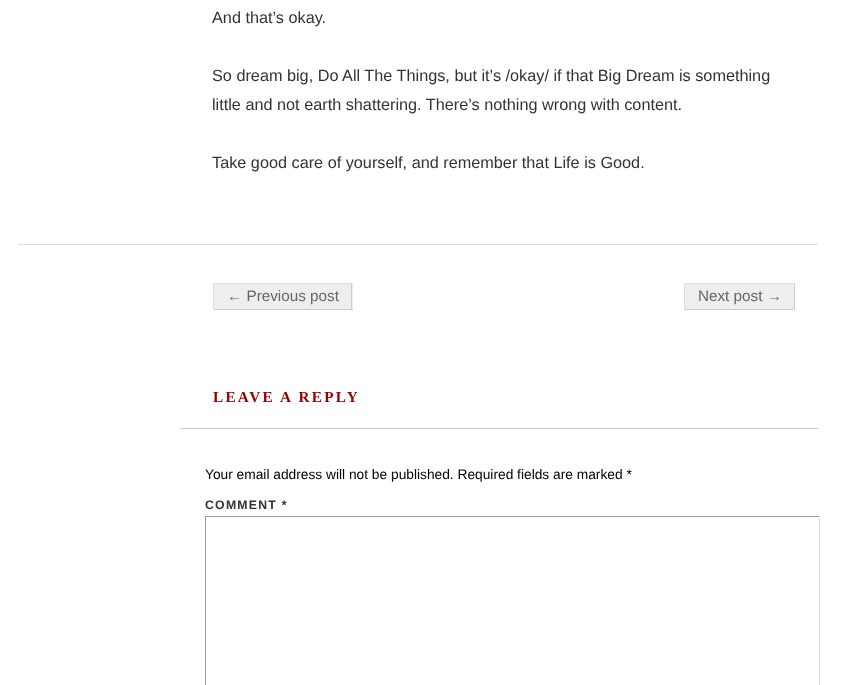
<?xml version="1.0" encoding="UTF-8"?>
<svg xmlns="http://www.w3.org/2000/svg" xmlns:xlink="http://www.w3.org/1999/xlink" width="851" height="685">
  <rect width="100%" height="100%" fill="#ffffff" />
  <rect x="18" y="244" width="800" height="1" fill="#dddddd" />
  <rect x="214" y="284" width="139" height="25" fill="#eeeeee" />
  <rect x="213" y="283" width="140" height="1" fill="#dddddd" />
  <rect x="351" y="283" width="1" height="27" fill="#cccccc" />
  <rect x="213" y="309" width="140" height="1" fill="#cccccc" />
  <rect x="213" y="283" width="1" height="27" fill="#dddddd" />
  <rect x="685" y="284" width="109" height="25" fill="#eeeeee" />
  <rect x="684" y="283" width="111" height="1" fill="#dddddd" />
  <rect x="794" y="283" width="1" height="27" fill="#cccccc" />
  <rect x="684" y="309" width="111" height="1" fill="#cccccc" />
  <rect x="684" y="283" width="1" height="27" fill="#dddddd" />
  <rect x="180" y="428" width="638" height="1" fill="#cccccc" />
  <rect x="205" y="516" width="615" height="1" fill="#999999" />
  <rect x="819" y="516" width="1" height="169" fill="#dadada" />
  <rect x="205" y="516" width="1" height="169" fill="#999999" />
  <text x="212" y="23" style="font-family: Liberation Sans; font-size: 16.25px; fill: #333333">And that’s okay.</text>
  <text x="212" y="81" style="font-family: Liberation Sans; font-size: 16.25px; fill: #333333">So dream big, Do All The Things, but it’s /okay/ if that Big Dream is something</text>
  <text x="212" y="110" style="font-family: Liberation Sans; font-size: 16.25px; fill: #333333">little and not earth shattering. There’s nothing wrong with content.</text>
  <text x="212" y="168" style="font-family: Liberation Sans; font-size: 16.25px; fill: #333333">Take good care of yourself, and remember that Life is Good.</text>
  <text x="227" y="301" style="font-family: Liberation Sans; font-size: 15.25px; fill: #666666">← Previous post</text>
  <text x="698" y="301" style="font-family: Liberation Sans; font-size: 15.25px; fill: #666666">Next post →</text>
  <text x="213" y="402" style="font-family: Liberation Serif; font-size: 15.25px; font-weight: bold; letter-spacing: 2.25px; fill: #990000">LEAVE A REPLY</text>
  <text x="205" y="479" style="font-family: Liberation Sans; font-size: 13.75px; fill: #000000">Your email address will not be published. Required fields are marked *</text>
  <text x="205" y="509" style="font-family: Liberation Sans; font-size: 12.25px; font-weight: bold; letter-spacing: 1.25px; fill: #333333">COMMENT *</text>
</svg>
